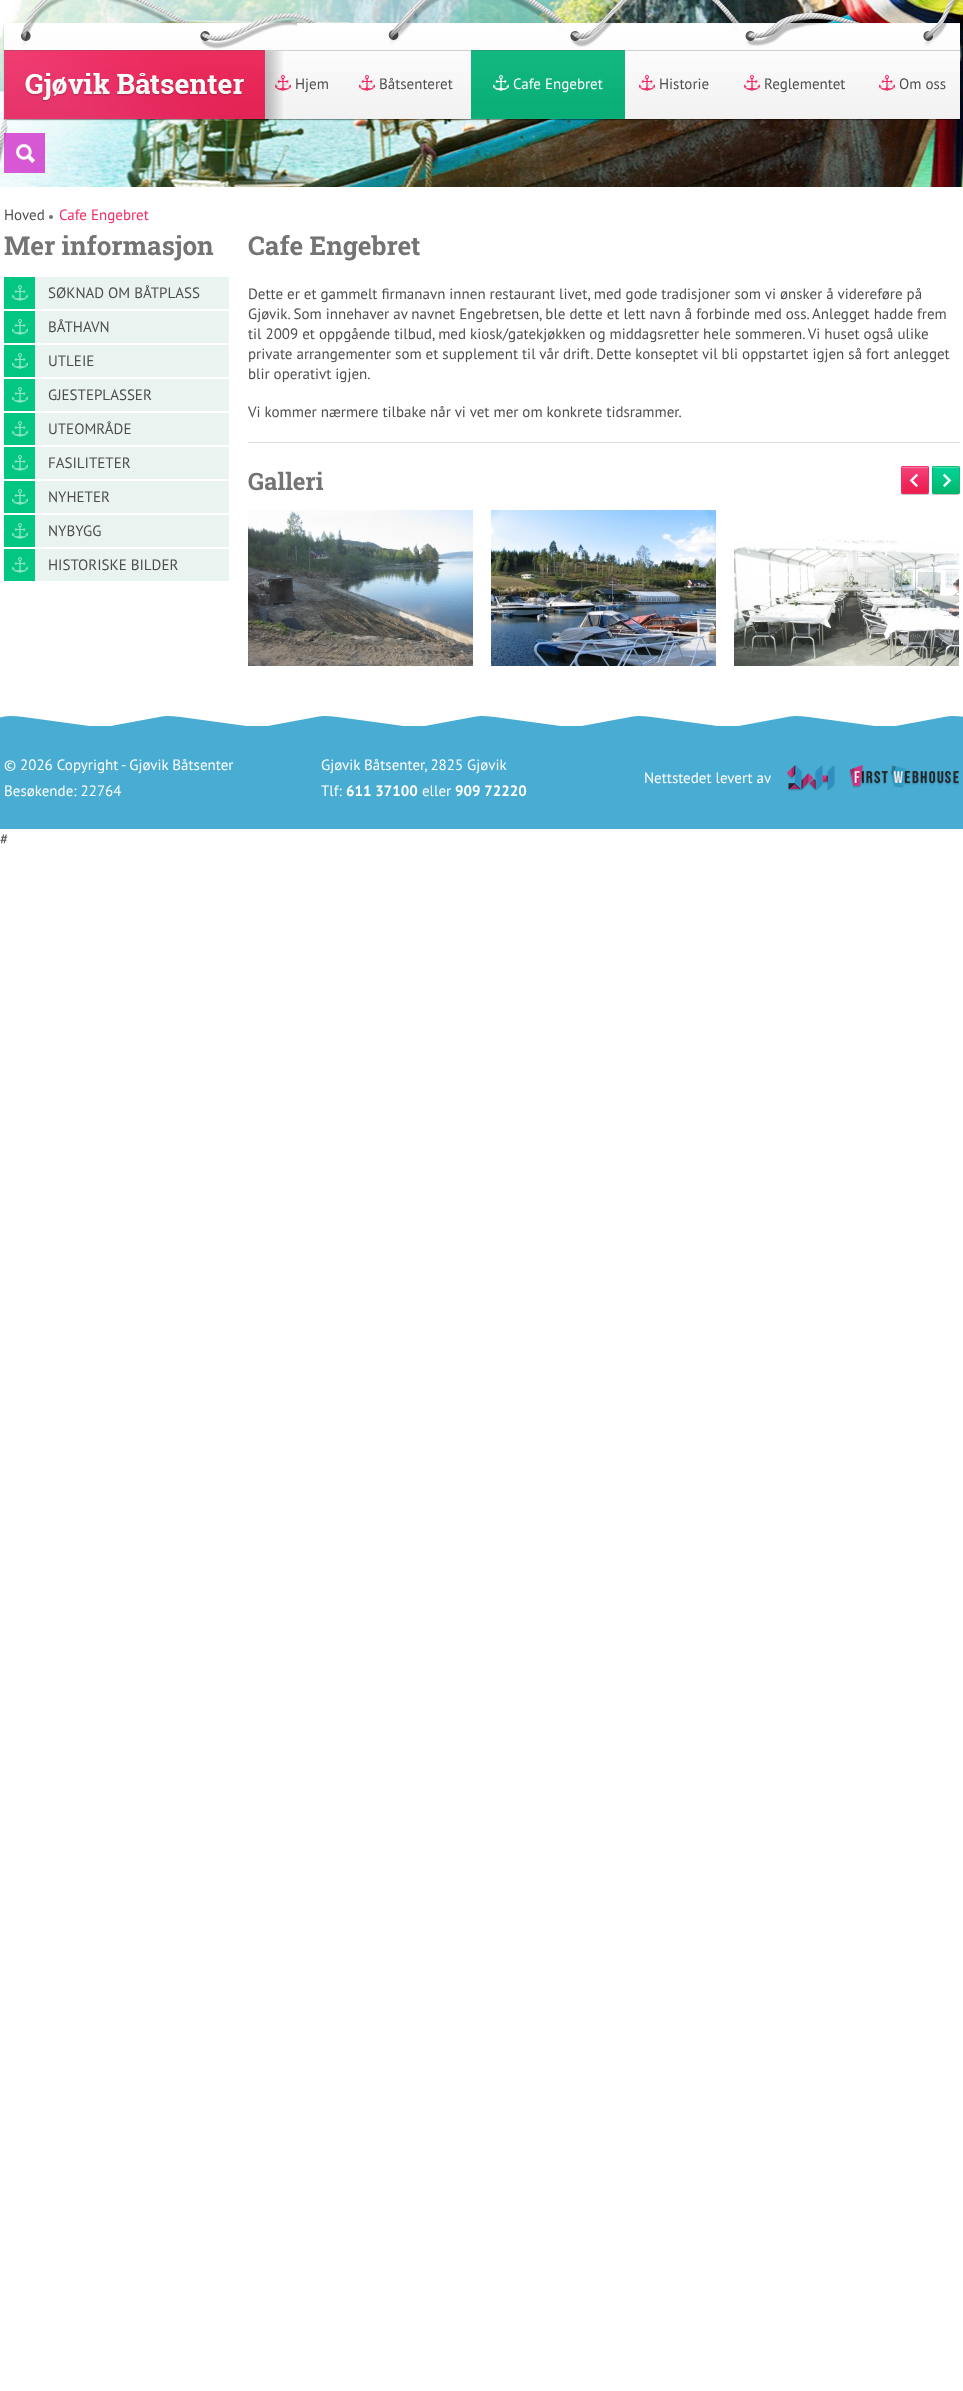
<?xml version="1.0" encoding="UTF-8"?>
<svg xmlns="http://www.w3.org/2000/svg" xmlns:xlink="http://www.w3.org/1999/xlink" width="963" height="2391">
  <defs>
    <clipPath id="clip1"><path d="M 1 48 h 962 v 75 h -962 z m 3 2 h 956 v 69 h -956 z" clip-rule="evenodd" /></clipPath>
  </defs>
  <rect width="100%" height="100%" fill="#ffffff" />
  <image x="0" y="0" width="963" height="187" xlink:href="image1.png" />
  <image x="0" y="0" width="961" height="162" xlink:href="image2.png" />
  <g clip-path="url(#clip1)">
    <rect x="4" y="51" width="956" height="69" fill="#000000" fill-opacity="0.25" filter="blur(0.5px)" />
  </g>
  <rect x="265" y="118" width="695" height="1" fill="#f0f0f0" fill-opacity="0.97" />
  <image x="4" y="50" width="261" height="69" xlink:href="image3.png" />
  <rect x="265" y="50" width="206" height="1" fill="#d0d0d0" />
  <image x="275" y="75" width="16" height="16" xlink:href="image5.png" />
  <image x="265" y="51" width="18" height="68" xlink:href="image4.png" />
  <image x="359" y="75" width="16" height="16" xlink:href="image5.png" />
  <image x="471" y="51" width="154" height="68" xlink:href="image6.png" />
  <rect x="471" y="50" width="154" height="1" fill="#259f75" />
  <image x="493" y="75" width="16" height="16" xlink:href="image7.png" />
  <rect x="625" y="50" width="335" height="1" fill="#d0d0d0" />
  <image x="639" y="75" width="16" height="16" xlink:href="image5.png" />
  <image x="744" y="75" width="16" height="16" xlink:href="image5.png" />
  <image x="879" y="75" width="16" height="16" xlink:href="image5.png" />
  <image x="4" y="133" width="41" height="40" xlink:href="image8.png" />
  <circle cx="51" cy="217" r="2" fill="#747474" />
  <rect x="35" y="277" width="194" height="32" fill="#e9f4f0" />
  <image x="4" y="277" width="31" height="32" xlink:href="image9.png" />
  <rect x="35" y="311" width="194" height="32" fill="#e9f4f0" />
  <image x="4" y="311" width="31" height="32" xlink:href="image9.png" />
  <rect x="35" y="345" width="194" height="32" fill="#e9f4f0" />
  <image x="4" y="345" width="31" height="32" xlink:href="image9.png" />
  <rect x="35" y="379" width="194" height="32" fill="#e9f4f0" />
  <image x="4" y="379" width="31" height="32" xlink:href="image9.png" />
  <rect x="35" y="413" width="194" height="32" fill="#e9f4f0" />
  <image x="4" y="413" width="31" height="32" xlink:href="image9.png" />
  <rect x="35" y="447" width="194" height="32" fill="#e9f4f0" />
  <image x="4" y="447" width="31" height="32" xlink:href="image9.png" />
  <rect x="35" y="481" width="194" height="32" fill="#e9f4f0" />
  <image x="4" y="481" width="31" height="32" xlink:href="image9.png" />
  <rect x="35" y="515" width="194" height="32" fill="#e9f4f0" />
  <image x="4" y="515" width="31" height="32" xlink:href="image9.png" />
  <rect x="35" y="549" width="194" height="32" fill="#e9f4f0" />
  <image x="4" y="549" width="31" height="32" xlink:href="image9.png" />
  <rect x="248" y="442" width="712" height="1" fill="#dddddd" />
  <image x="901" y="466" width="28" height="29" xlink:href="image10.png" />
  <image x="932" y="466" width="28" height="29" xlink:href="image11.png" />
  <image x="248" y="510" width="225" height="156" xlink:href="image12.png" />
  <image x="491" y="510" width="225" height="156" xlink:href="image13.png" />
  <image x="734" y="539" width="225" height="127" xlink:href="image14.png" />
  <image x="0" y="716" width="963" height="10" xlink:href="image15.png" />
  <rect y="726" width="963" height="103" fill="#49acd2" />
  <image x="786" y="765" width="174" height="26" xlink:href="image16.png" />
  <text x="295" y="89" style="font-family: PT Sans; font-size: 15px; fill: #4e4e4e">Hjem</text>
  <text x="379" y="89" style="font-family: PT Sans; font-size: 15px; fill: #4e4e4e">Båtsenteret</text>
  <text x="513" y="89" style="font-family: PT Sans; font-size: 15px; fill: #ffffff">Cafe Engebret</text>
  <text x="659" y="89" style="font-family: PT Sans; font-size: 15px; fill: #4e4e4e">Historie</text>
  <text x="764" y="89" style="font-family: PT Sans; font-size: 15px; fill: #4e4e4e">Reglementet</text>
  <text x="899" y="89" style="font-family: PT Sans; font-size: 15px; fill: #4e4e4e">Om oss</text>
  <text x="4" y="220" style="font-family: PT Sans; font-size: 15px; fill: #4e4e4e">Hoved</text>
  <text x="59" y="220" style="font-family: PT Sans; font-size: 15px; fill: #f12b63">Cafe Engebret</text>
  <text x="4" y="255" style="font-family: Roboto Slab; font-size: 26px; font-weight: bold; fill: #747474">Mer informasjon</text>
  <text x="48" y="298" style="font-family: PT Sans; font-size: 15px; fill: #4e4e4e">SØKNAD OM BÅTPLASS</text>
  <text x="48" y="332" style="font-family: PT Sans; font-size: 15px; fill: #4e4e4e">BÅTHAVN</text>
  <text x="48" y="366" style="font-family: PT Sans; font-size: 15px; fill: #4e4e4e">UTLEIE</text>
  <text x="48" y="400" style="font-family: PT Sans; font-size: 15px; fill: #4e4e4e">GJESTEPLASSER</text>
  <text x="48" y="434" style="font-family: PT Sans; font-size: 15px; fill: #4e4e4e">UTEOMRÅDE</text>
  <text x="48" y="468" style="font-family: PT Sans; font-size: 15px; fill: #4e4e4e">FASILITETER</text>
  <text x="48" y="502" style="font-family: PT Sans; font-size: 15px; fill: #4e4e4e">NYHETER</text>
  <text x="48" y="536" style="font-family: PT Sans; font-size: 15px; fill: #4e4e4e">NYBYGG</text>
  <text x="48" y="570" style="font-family: PT Sans; font-size: 15px; fill: #4e4e4e">HISTORISKE BILDER</text>
  <text x="248" y="255" style="font-family: Roboto Slab; font-size: 26px; font-weight: bold; fill: #747474">Cafe Engebret</text>
  <text x="248" y="299" style="font-family: PT Sans; font-size: 15px; fill: #4e4e4e">Dette er et gammelt firmanavn innen restaurant livet, med gode tradisjoner som vi ønsker å videreføre på</text>
  <text x="248" y="319" style="font-family: PT Sans; font-size: 15px; fill: #4e4e4e">Gjøvik. Som innehaver av navnet Engebretsen, ble dette et lett navn å forbinde med oss. Anlegget hadde frem</text>
  <text x="248" y="339" style="font-family: PT Sans; font-size: 15px; fill: #4e4e4e">til 2009 et oppgående tilbud, med kiosk/gatekjøkken og middagsretter hele sommeren. Vi huset også ulike</text>
  <text x="248" y="359" style="font-family: PT Sans; font-size: 15px; fill: #4e4e4e">private arrangementer som et supplement til vår drift. Dette konseptet vil bli oppstartet igjen så fort anlegget</text>
  <text x="248" y="379" style="font-family: PT Sans; font-size: 15px; fill: #4e4e4e">blir operativt igjen.</text>
  <text x="248" y="417" style="font-family: PT Sans; font-size: 15px; fill: #4e4e4e">Vi kommer nærmere tilbake når vi vet mer om konkrete tidsrammer.</text>
  <text x="248" y="490" style="font-family: Roboto Slab; font-size: 24px; font-weight: bold; fill: #747474">Galleri</text>
  <text x="4" y="770" style="font-family: PT Sans; font-size: 15px; fill: #ffffff">© 2026 Copyright - Gjøvik Båtsenter</text>
  <text x="4" y="796" style="font-family: PT Sans; font-size: 15px; fill: #ffffff">Besøkende: 22764</text>
  <text x="321" y="770" style="font-family: PT Sans; font-size: 15px; fill: #ffffff">Gjøvik Båtsenter, 2825 Gjøvik</text>
  <text x="321" y="796" style="font-family: PT Sans; font-size: 15px; fill: #ffffff">Tlf:</text>
  <text x="346" y="796" style="font-family: PT Sans; font-size: 15px; font-weight: bold; fill: #ffffff">611 37100</text>
  <text x="422" y="796" style="font-family: PT Sans; font-size: 15px; fill: #ffffff">eller</text>
  <text x="455" y="796" style="font-family: PT Sans; font-size: 15px; font-weight: bold; fill: #ffffff">909 72220</text>
  <text x="644" y="783" style="font-family: PT Sans; font-size: 15px; fill: #ffffff">Nettstedet levert av</text>
  <text x="0" y="844" style="font-family: PT Sans; font-size: 15px; fill: #4e4e4e">#</text>
</svg>
